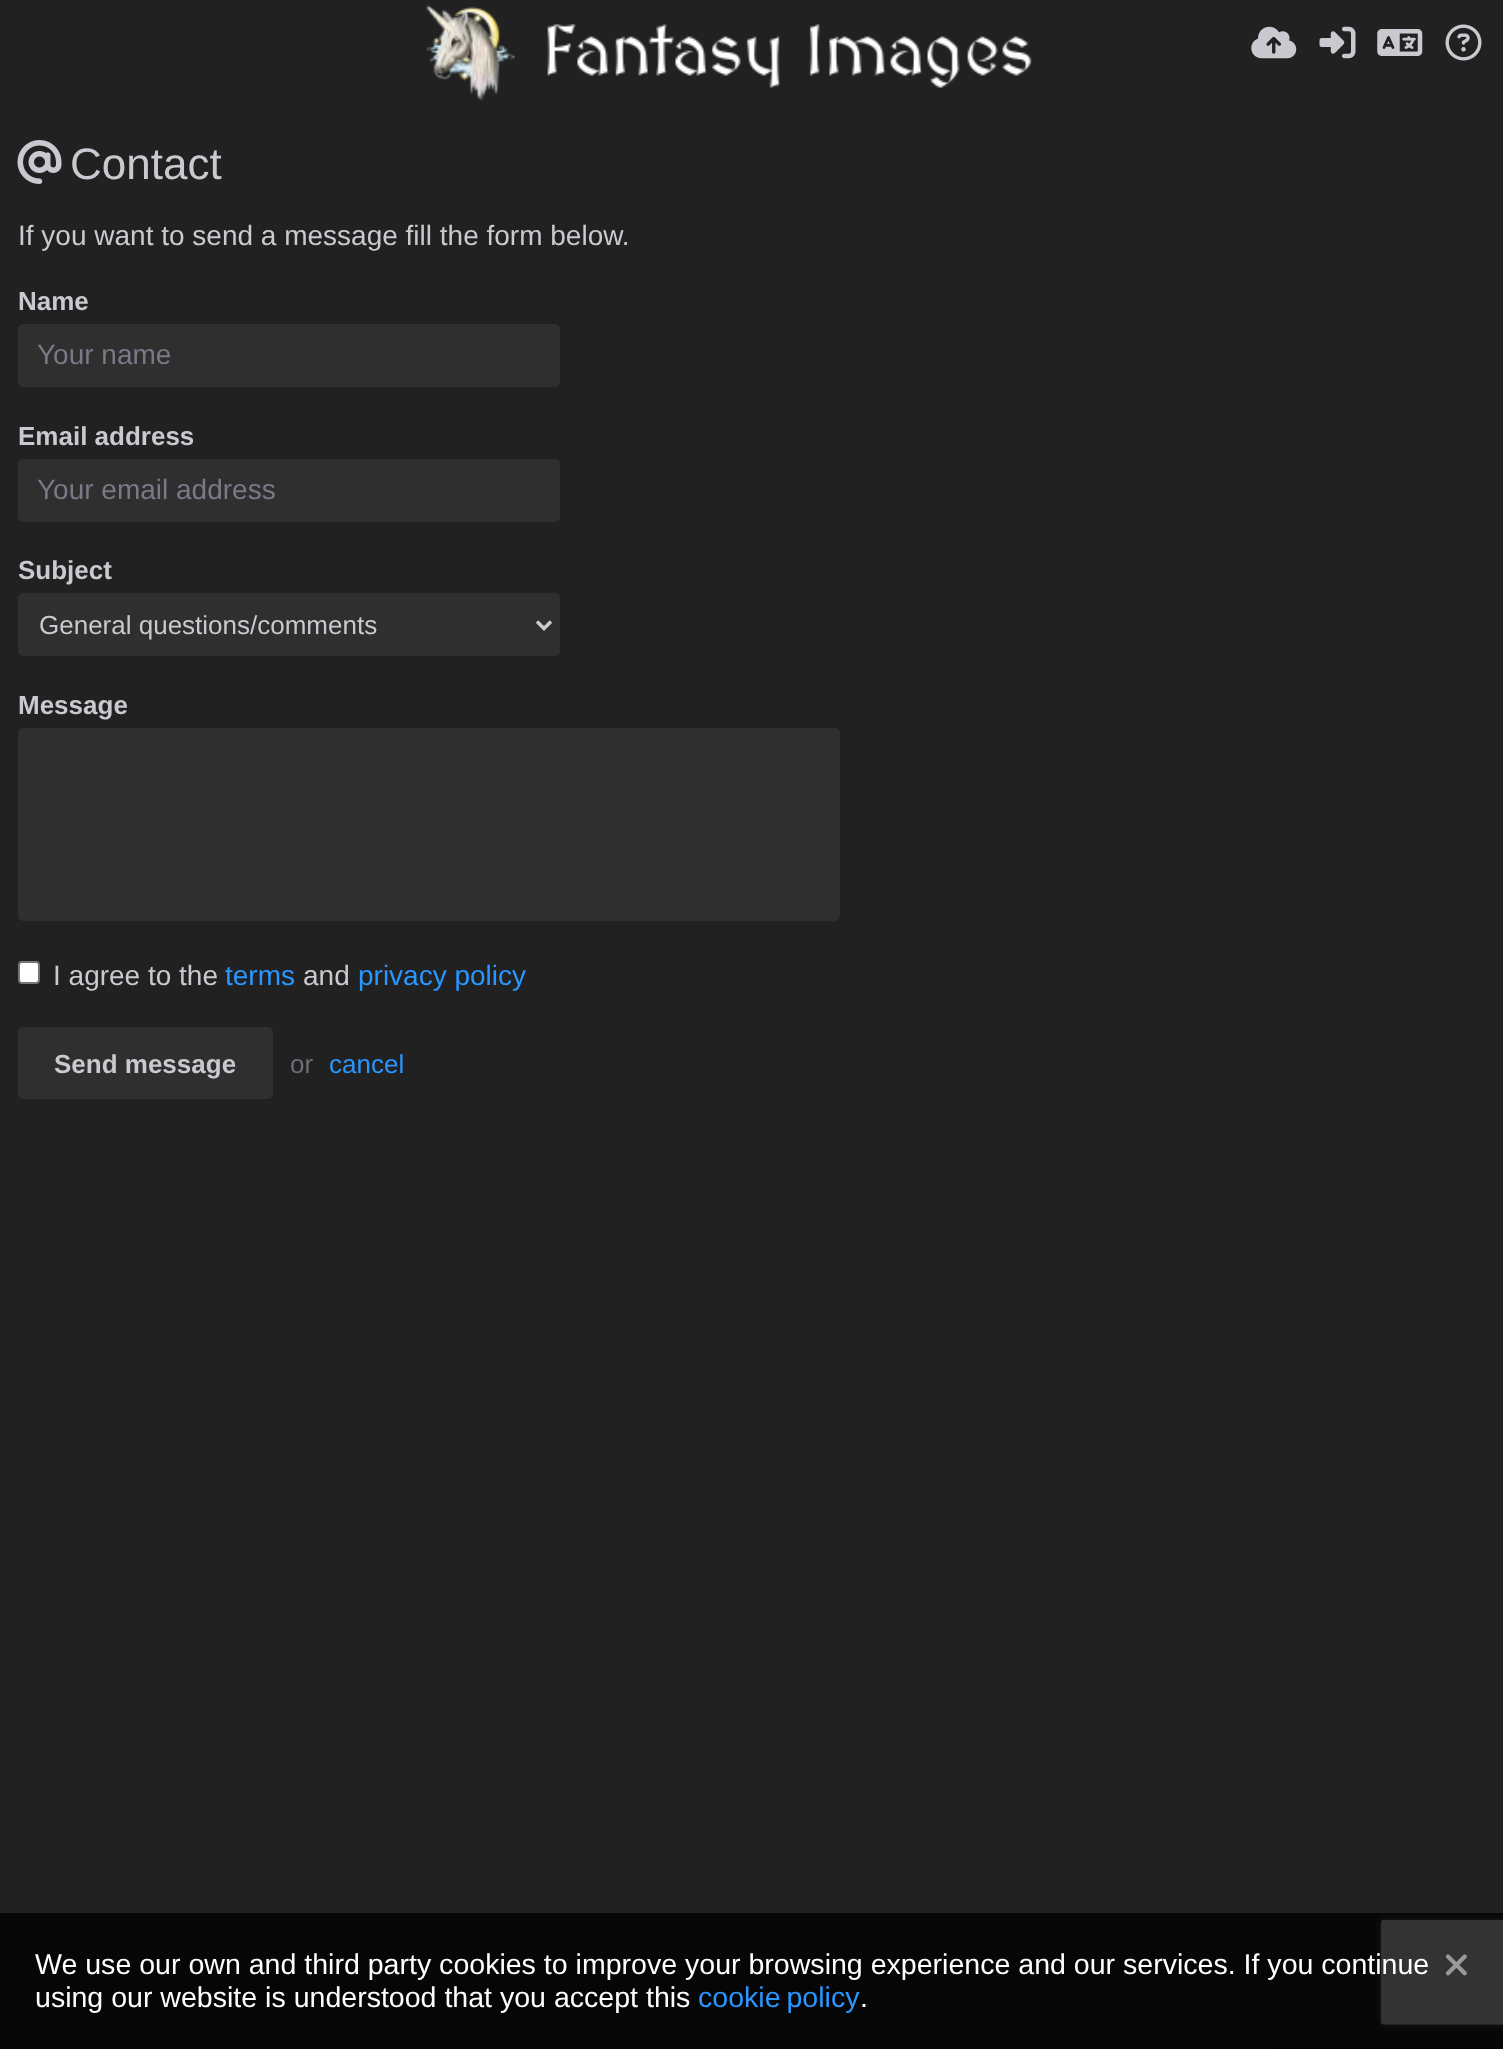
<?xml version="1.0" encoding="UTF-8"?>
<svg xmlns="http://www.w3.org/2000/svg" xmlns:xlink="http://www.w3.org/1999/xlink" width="1503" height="2049">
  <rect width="100%" height="100%" fill="#212121" />
  <image x="426" y="5" width="606" height="96" xlink:href="image1.png" />
  <image x="1251" y="26" width="46" height="33" xlink:href="image2.png" />
  <image x="1319" y="26" width="37" height="33" xlink:href="image3.png" />
  <image x="1377" y="29" width="46" height="27" xlink:href="image4.png" />
  <image x="1445" y="24" width="37" height="37" xlink:href="image5.png" />
  <image x="17" y="140" width="45" height="44" xlink:href="image6.png" />
  <rect x="18" y="324" width="542" height="63" rx="5" fill="#2f2f2f" />
  <rect x="18" y="459" width="542" height="63" rx="5" fill="#2f2f2f" />
  <rect x="18" y="593" width="542" height="63" rx="5" fill="#2f2f2f" />
  <path d="M 537 621.5 l 7 7 l 7 -7" fill="none" stroke="#cac9cf" stroke-width="3.5" />
  <rect x="18" y="728" width="822" height="193" rx="5" fill="#2f2f2f" />
  <rect x="19" y="962" width="20" height="21" rx="3" fill="#ffffff" stroke="#767676" stroke-width="2" />
  <rect x="19" y="1028" width="253" height="70" rx="4" fill="#2f2f2f" stroke="#2f2f2f" stroke-width="2" />
  <rect x="1381" y="1920" width="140" height="105" rx="4" fill="#808080" filter="blur(4.5px)" />
  <image x="1380" y="1919" width="123" height="106" xlink:href="image8.png" />
  <rect y="1913" width="1503" height="136" fill="#000000" fill-opacity="0.8" />
  <image x="1445" y="1954" width="22" height="22" xlink:href="image7.png" />
  <text x="70" y="179" style="font-family: Liberation Sans; font-size: 44px; fill: #cac9cf">Contact</text>
  <text x="18" y="245" style="font-family: Liberation Sans; font-size: 28px; fill: #cac9cf">If you want to send a message fill the form below.</text>
  <text x="18" y="310" style="font-family: Liberation Sans; font-size: 26px; font-weight: bold; fill: #cac9cf">Name</text>
  <text x="37" y="364" style="font-family: Liberation Sans; font-size: 28px; fill: #7a7986">Your name</text>
  <text x="18" y="445" style="font-family: Liberation Sans; font-size: 26px; font-weight: bold; fill: #cac9cf">Email address</text>
  <text x="37" y="499" style="font-family: Liberation Sans; font-size: 28px; fill: #7a7986">Your email address</text>
  <text x="18" y="579" style="font-family: Liberation Sans; font-size: 26px; font-weight: bold; fill: #cac9cf">Subject</text>
  <text x="39" y="634" style="font-family: Liberation Sans; font-size: 26px; fill: #cac9cf">General questions/comments</text>
  <text x="18" y="714" style="font-family: Liberation Sans; font-size: 26px; font-weight: bold; fill: #cac9cf">Message</text>
  <text x="53" y="985" style="font-family: Liberation Sans; font-size: 28px; fill: #cac9cf">I agree to the</text>
  <text x="225" y="985" style="font-family: Liberation Sans; font-size: 28px; fill: #2997ff">terms</text>
  <text x="303" y="985" style="font-family: Liberation Sans; font-size: 28px; fill: #cac9cf">and</text>
  <text x="358" y="985" style="font-family: Liberation Sans; font-size: 28px; fill: #2997ff">privacy policy</text>
  <text x="54" y="1073" style="font-family: Liberation Sans; font-size: 26px; font-weight: bold; fill: #cac9cf">Send message</text>
  <text x="290" y="1073" style="font-family: Liberation Sans; font-size: 26px; fill: #6e6d78">or</text>
  <text x="329" y="1073" style="font-family: Liberation Sans; font-size: 26px; fill: #2997ff">cancel</text>
  <text x="35" y="1974" style="font-family: Liberation Sans; font-size: 28.55px; fill: #ffffff">We use our own and third party cookies to improve your browsing experience and our services. If you continue</text>
  <text x="35" y="2007" style="font-family: Liberation Sans; font-size: 28.55px; fill: #ffffff">using our website is understood that you accept this</text>
  <text x="698" y="2007" word-spacing="-2" style="font-family: Liberation Sans; font-size: 28.55px; fill: #2997ff">cookie policy</text>
  <text x="860" y="2007" style="font-family: Liberation Sans; font-size: 28.55px; fill: #ffffff">.</text>
</svg>
